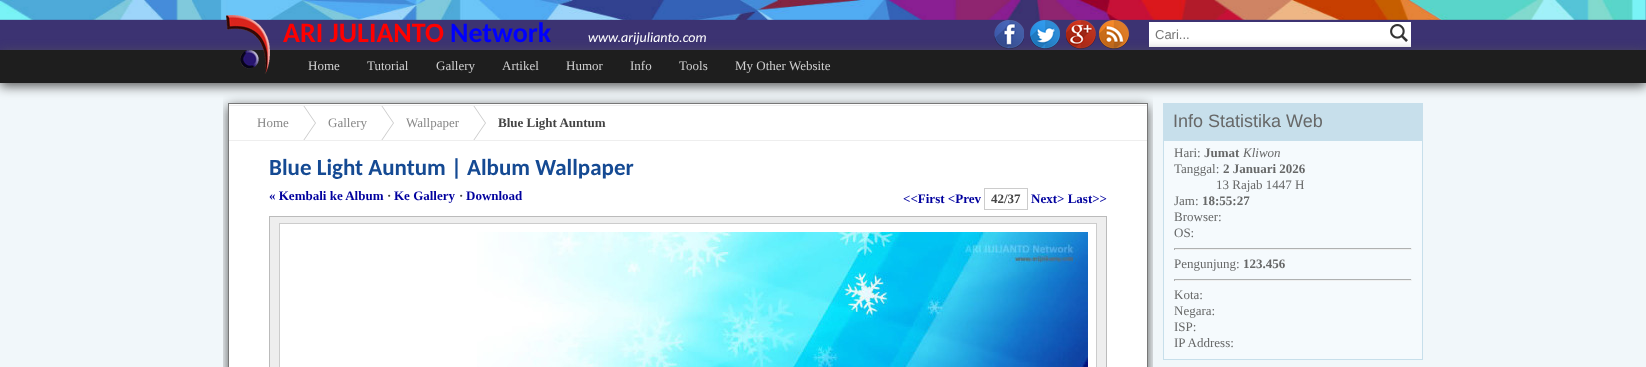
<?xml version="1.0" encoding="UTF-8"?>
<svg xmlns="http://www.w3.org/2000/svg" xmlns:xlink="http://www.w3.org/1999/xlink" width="1646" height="367">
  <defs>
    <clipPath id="clip1"><rect x="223" y="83" width="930" height="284" /></clipPath>
    <clipPath id="clip2"><rect x="229" y="106" width="918" height="34" /></clipPath>
  </defs>
  <rect width="100%" height="100%" fill="#f1f7fa" />
  <rect width="1646" height="50" fill="#3c3372" />
  <image x="0" y="0" width="1646" height="20" xlink:href="image1.png" />
  <image x="994" y="20" width="30" height="29" xlink:href="image2.png" />
  <image x="1030" y="20" width="30" height="29" xlink:href="image3.png" />
  <image x="1066" y="20" width="30" height="29" xlink:href="image4.png" />
  <image x="1099" y="20" width="30" height="29" xlink:href="image5.png" />
  <rect x="1149" y="22" width="262" height="25" fill="#ffffff" />
  <image x="1390" y="24" width="18" height="18" xlink:href="image6.png" />
  <g clip-path="url(#clip1)">
    <rect x="228" y="106" width="920" height="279" fill="#555555" filter="blur(6px)" />
  </g>
  <rect x="228.5" y="103.5" width="919" height="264" fill="#ffffff" stroke="#777777" />
  <rect x="1163" y="103" width="260" height="37" fill="#c7dfeb" />
  <rect y="53" width="1646" height="33" fill="#555555" filter="blur(6px)" />
  <rect y="50" width="1646" height="33" fill="#1e1e1e" />
  <image x="226" y="15" width="44" height="59" xlink:href="image7.png" />
  <rect x="229" y="105" width="918" height="1" fill="#eeeeee" />
  <rect x="229" y="140" width="918" height="1" fill="#eeeeee" />
  <g clip-path="url(#clip2)">
    <path d="M 303 142 v -38 l 13 19 z" fill="#cccccc" />
    <path d="M 302 142 v -38 l 13 19 z" fill="#ffffff" />
    <path d="M 381 142 v -38 l 13 19 z" fill="#cccccc" />
    <path d="M 380 142 v -38 l 13 19 z" fill="#ffffff" />
    <path d="M 473 142 v -38 l 13 19 z" fill="#cccccc" />
    <path d="M 472 142 v -38 l 13 19 z" fill="#ffffff" />
  </g>
  <rect x="984.5" y="188.5" width="43" height="21" fill="none" stroke="#cccccc" />
  <rect x="269.5" y="216.5" width="837" height="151" fill="#eeeeee" stroke="#bbbbbb" />
  <rect x="279.5" y="223.5" width="817" height="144" fill="#ffffff" stroke="#cccccc" />
  <image x="477" y="232" width="611" height="135" xlink:href="image8.png" />
  <rect x="1163.5" y="140.5" width="259" height="219" fill="#f5fafd" stroke="#c7dfeb" />
  <rect x="1174" y="248" width="238" height="1" fill="#afb1b1" />
  <rect x="1411" y="248" width="1" height="2" fill="#eff0f0" />
  <rect x="1174" y="249" width="238" height="1" fill="#eff0f0" />
  <rect x="1174" y="248" width="1" height="2" fill="#afb1b1" />
  <rect x="1174" y="279" width="238" height="1" fill="#afb1b1" />
  <rect x="1411" y="279" width="1" height="2" fill="#eff0f0" />
  <rect x="1174" y="280" width="238" height="1" fill="#eff0f0" />
  <rect x="1174" y="279" width="1" height="2" fill="#afb1b1" />
  <text x="283" y="42" style="font-family: Carlito; font-size: 28px; font-weight: bold; fill: #ff0000">ARI JULIANTO</text>
  <text x="450" y="42" style="font-family: Carlito; font-size: 28px; font-weight: bold; fill: #0000ff">Network</text>
  <text x="588" y="42" style="font-family: Carlito; font-size: 14px; font-style: italic; fill: #ffffff">www.arijulianto.com</text>
  <text x="1155" y="39" style="font-family: Liberation Sans; font-size: 13px; fill: #757575">Cari...</text>
  <text x="308" y="70" style="font-family: Liberation Serif; font-size: 13px; fill: #d0d0d0">Home</text>
  <text x="367" y="70" style="font-family: Liberation Serif; font-size: 13px; fill: #d0d0d0">Tutorial</text>
  <text x="436" y="70" style="font-family: Liberation Serif; font-size: 13px; fill: #d0d0d0">Gallery</text>
  <text x="502" y="70" style="font-family: Liberation Serif; font-size: 13px; fill: #d0d0d0">Artikel</text>
  <text x="566" y="70" style="font-family: Liberation Serif; font-size: 13px; fill: #d0d0d0">Humor</text>
  <text x="630" y="70" style="font-family: Liberation Serif; font-size: 13px; fill: #d0d0d0">Info</text>
  <text x="679" y="70" style="font-family: Liberation Serif; font-size: 13px; fill: #d0d0d0">Tools</text>
  <text x="735" y="70" style="font-family: Liberation Serif; font-size: 13px; fill: #d0d0d0">My Other Website</text>
  <text x="257" y="127" style="font-family: Liberation Serif; font-size: 13px; fill: #888888">Home</text>
  <text x="328" y="127" style="font-family: Liberation Serif; font-size: 13px; fill: #888888">Gallery</text>
  <text x="406" y="127" style="font-family: Liberation Serif; font-size: 13px; fill: #888888">Wallpaper</text>
  <text x="498" y="127" style="font-family: Liberation Serif; font-size: 13px; font-weight: bold; fill: #444444">Blue Light Auntum</text>
  <text x="269" y="175" style="font-family: Carlito; font-size: 23px; font-weight: bold; fill: #154a93">Blue Light Auntum | Album Wallpaper</text>
  <text x="269" y="200" style="font-family: Liberation Serif; font-size: 13px; font-weight: bold; fill: #00009e">« Kembali ke Album</text>
  <text x="387" y="200" style="font-family: Liberation Serif; font-size: 13px; font-weight: bold; fill: #444444">·</text>
  <text x="394" y="200" style="font-family: Liberation Serif; font-size: 13px; font-weight: bold; fill: #00009e">Ke Gallery</text>
  <text x="459" y="200" style="font-family: Liberation Serif; font-size: 13px; font-weight: bold; fill: #444444">·</text>
  <text x="466" y="200" style="font-family: Liberation Serif; font-size: 13px; font-weight: bold; fill: #00009e">Download</text>
  <text x="903" y="203" style="font-family: Liberation Serif; font-size: 13px; font-weight: bold; fill: #00009e">&lt;&lt;First &lt;Prev</text>
  <text x="991" y="203" style="font-family: Liberation Serif; font-size: 13px; font-weight: bold; fill: #444444">42/37</text>
  <text x="1031" y="203" style="font-family: Liberation Serif; font-size: 13px; font-weight: bold; fill: #00009e">Next&gt; Last&gt;&gt;</text>
  <text x="1173" y="127" style="font-family: Liberation Sans; font-size: 18px; fill: #676868">Info Statistika Web</text>
  <text x="1174" y="157" style="font-family: Liberation Serif; font-size: 13px; fill: #676868">Hari:</text>
  <text x="1204" y="157" style="font-family: Liberation Serif; font-size: 13px; font-weight: bold; fill: #676868">Jumat</text>
  <text x="1243" y="157" style="font-family: Liberation Serif; font-size: 13px; font-style: italic; fill: #676868">Kliwon</text>
  <text x="1174" y="173" style="font-family: Liberation Serif; font-size: 13px; fill: #676868">Tanggal:</text>
  <text x="1223" y="173" style="font-family: Liberation Serif; font-size: 13px; font-weight: bold; fill: #676868">2 Januari 2026</text>
  <text x="1216" y="189" style="font-family: Liberation Serif; font-size: 13px; fill: #676868">13 Rajab 1447 H</text>
  <text x="1174" y="205" style="font-family: Liberation Serif; font-size: 13px; fill: #676868">Jam:</text>
  <text x="1202" y="205" style="font-family: Liberation Serif; font-size: 13px; font-weight: bold; fill: #676868">18:55:27</text>
  <text x="1174" y="221" style="font-family: Liberation Serif; font-size: 13px; fill: #676868">Browser:</text>
  <text x="1174" y="237" style="font-family: Liberation Serif; font-size: 13px; fill: #676868">OS:</text>
  <text x="1174" y="268" style="font-family: Liberation Serif; font-size: 13px; fill: #676868">Pengunjung:</text>
  <text x="1243" y="268" style="font-family: Liberation Serif; font-size: 13px; font-weight: bold; fill: #676868">123.456</text>
  <text x="1174" y="299" style="font-family: Liberation Serif; font-size: 13px; fill: #676868">Kota:</text>
  <text x="1174" y="315" style="font-family: Liberation Serif; font-size: 13px; fill: #676868">Negara:</text>
  <text x="1174" y="331" style="font-family: Liberation Serif; font-size: 13px; fill: #676868">ISP:</text>
  <text x="1174" y="347" style="font-family: Liberation Serif; font-size: 13px; fill: #676868">IP Address:</text>
</svg>
